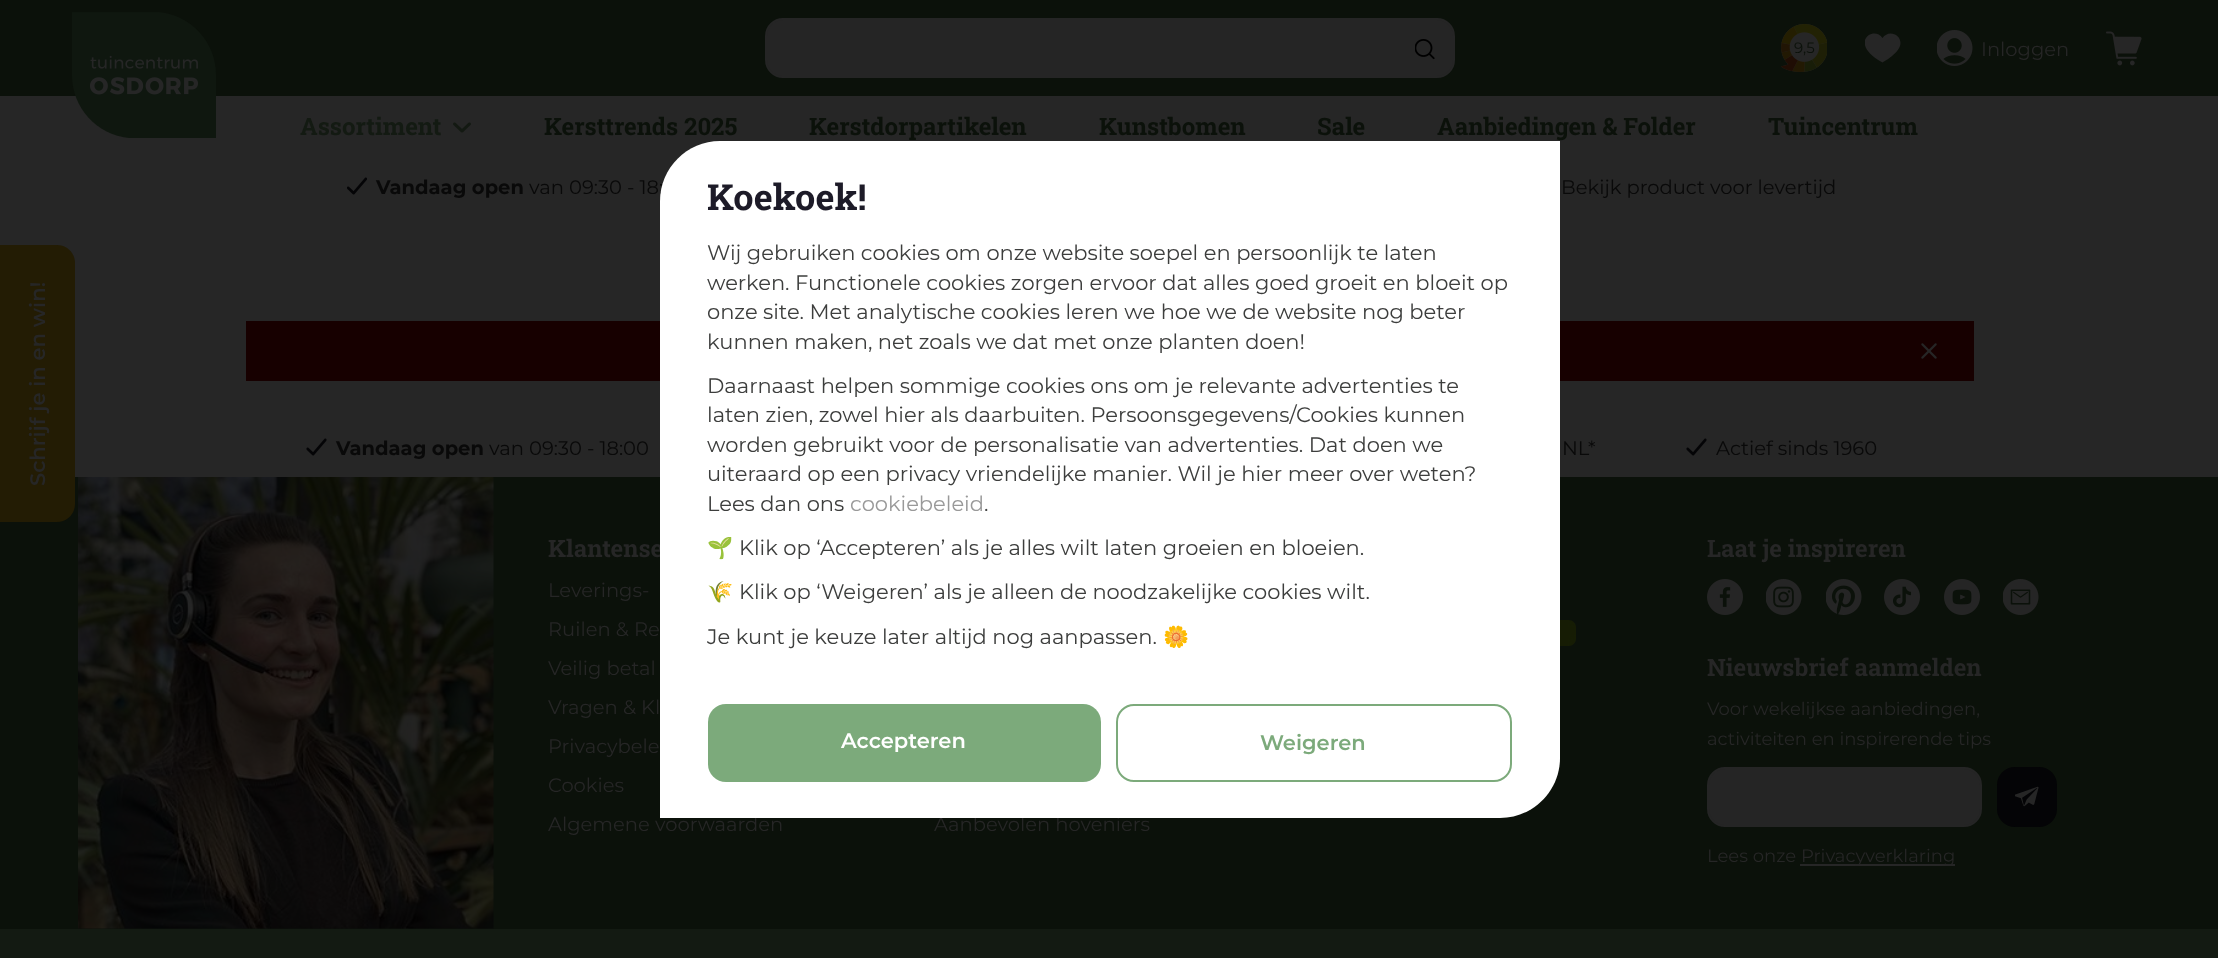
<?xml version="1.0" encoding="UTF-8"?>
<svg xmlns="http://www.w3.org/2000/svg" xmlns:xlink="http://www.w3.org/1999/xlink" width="2218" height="958">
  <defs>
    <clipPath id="clip1"><rect x="1865" y="30" width="36" height="36" /></clipPath>
  </defs>
  <rect width="100%" height="100%" fill="#262626" />
  <rect width="2218" height="96" fill="#0b110a" />
  <image x="72" y="12" width="144" height="126" xlink:href="image1.png" />
  <rect x="766" y="19" width="688" height="58" rx="17" fill="#252525" stroke="#252525" stroke-width="2" />
  <image x="1415" y="39" width="20" height="21" xlink:href="image2.png" />
  <image x="1781" y="24" width="46" height="48" xlink:href="image3.png" />
  <g clip-path="url(#clip1)">
    <path d="M 1890.5 33.5 c 5.5 0 10 4 10 9.5 c 0 10 -18 19.5 -18 19.5 c -35.5 -19.5 -8.5 -38 0 -24.5 c 2 -3 5 -4.5 8 -4.5 z" fill="#262626" fill-rule="evenodd" />
  </g>
  <image x="1937" y="30" width="36" height="36" xlink:href="image4.png" />
  <image x="2106" y="31" width="36" height="35" xlink:href="image5.png" />
  <image x="453" y="122" width="18" height="11" xlink:href="image6.png" />
  <image x="347" y="177" width="20" height="18" xlink:href="image7.png" />
  <rect x="246" y="321" width="1728" height="60" fill="#170000" />
  <image x="1921" y="343" width="16" height="16" xlink:href="image8.png" />
  <image x="306" y="438" width="21" height="18" xlink:href="image9.png" />
  <image x="1686" y="438" width="21" height="18" xlink:href="image9.png" />
  <rect y="477" width="2218" height="452" fill="#0b110a" />
  <image x="78" y="477" width="416" height="452" xlink:href="image10.png" />
  <image x="1707" y="579" width="36" height="36" xlink:href="image11.png" />
  <image x="1766" y="579" width="36" height="36" xlink:href="image12.png" />
  <image x="1826" y="579" width="36" height="36" xlink:href="image13.png" />
  <image x="1884" y="579" width="36" height="36" xlink:href="image14.png" />
  <image x="1944" y="579" width="36" height="36" xlink:href="image15.png" />
  <image x="2003" y="579" width="36" height="36" xlink:href="image16.png" />
  <image x="1560" y="553" width="16" height="93" xlink:href="image17.png" />
  <rect x="1708" y="768" width="273" height="58" rx="17" fill="#252525" stroke="#252525" stroke-width="2" />
  <rect x="1997" y="767" width="60" height="60" rx="18" fill="#040406" />
  <image x="2015" y="786" width="24" height="21" xlink:href="image18.png" />
  <rect x="1800" y="864" width="155" height="2" fill="#262626" />
  <rect y="929" width="2218" height="29" fill="#131a12" />
  <path d="M 0 522 v -277 h 57 c 10 0 18 8 18 18 v 241 c 0 10 -8 18 -18 18 z" fill="#231c04" />
  <text x="1794" y="53" style="font-family: Montserrat; font-size: 15px; fill: #0b110a">9,5</text>
  <text x="1981" y="56" style="font-family: Montserrat; font-size: 19.5px; fill: #262626">Inloggen</text>
  <text x="300" y="135" style="font-family: Roboto Slab; font-size: 24px; font-weight: bold; fill: #131a12">Assortiment</text>
  <text x="544" y="135" style="font-family: Roboto Slab; font-size: 24px; font-weight: bold; fill: #0b110a">Kersttrends 2025</text>
  <text x="809" y="135" style="font-family: Roboto Slab; font-size: 24px; font-weight: bold; fill: #0b110a">Kerstdorpartikelen</text>
  <text x="1099" y="135" style="font-family: Roboto Slab; font-size: 24px; font-weight: bold; fill: #0b110a">Kunstbomen</text>
  <text x="1317" y="135" style="font-family: Roboto Slab; font-size: 24px; font-weight: bold; fill: #0b110a">Sale</text>
  <text x="1437" y="135" style="font-family: Roboto Slab; font-size: 24px; font-weight: bold; fill: #0b110a">Aanbiedingen &amp; Folder</text>
  <text x="1768" y="135" style="font-family: Roboto Slab; font-size: 24px; font-weight: bold; fill: #0b110a">Tuincentrum</text>
  <text x="376" y="194" style="font-family: Montserrat; font-size: 19.5px; font-weight: bold; fill: #090909">Vandaag open</text>
  <text x="529" y="194" style="font-family: Montserrat; font-size: 19.5px; fill: #090909">van 09:30 - 18:</text>
  <text x="1561" y="194" style="font-family: Montserrat; font-size: 19.5px; fill: #090909">Bekijk product voor levertijd</text>
  <text x="336" y="455" style="font-family: Montserrat; font-size: 19.5px; font-weight: bold; fill: #090909">Vandaag open</text>
  <text x="489" y="455" style="font-family: Montserrat; font-size: 19.5px; fill: #090909">van 09:30 - 18:00</text>
  <text x="1562" y="455" style="font-family: Montserrat; font-size: 19.5px; fill: #090909">NL*</text>
  <text x="1716" y="455" style="font-family: Montserrat; font-size: 19.5px; fill: #090909">Actief sinds 1960</text>
  <text x="548" y="557" style="font-family: Roboto Slab; font-size: 24px; font-weight: bold; fill: #262626">Klantense</text>
  <text x="548" y="597" style="font-family: Montserrat; font-size: 19.5px; fill: #262626">Leverings-</text>
  <text x="548" y="636" style="font-family: Montserrat; font-size: 19.5px; fill: #262626">Ruilen &amp; Re</text>
  <text x="548" y="675" style="font-family: Montserrat; font-size: 19.5px; fill: #262626">Veilig betal</text>
  <text x="548" y="714" style="font-family: Montserrat; font-size: 19.5px; fill: #262626">Vragen &amp; Kl</text>
  <text x="548" y="753" style="font-family: Montserrat; font-size: 19.5px; fill: #262626">Privacybele</text>
  <text x="548" y="792" style="font-family: Montserrat; font-size: 19.5px; fill: #262626">Cookies</text>
  <text x="548" y="831" style="font-family: Montserrat; font-size: 19.5px; fill: #262626">Algemene voorwaarden</text>
  <text x="934" y="831" style="font-family: Montserrat; font-size: 19.5px; fill: #262626">Aanbevolen hoveniers</text>
  <text x="1707" y="557" style="font-family: Roboto Slab; font-size: 24px; font-weight: bold; fill: #262626">Laat je inspireren</text>
  <text x="1707" y="676" style="font-family: Roboto Slab; font-size: 24px; font-weight: bold; fill: #262626">Nieuwsbrief aanmelden</text>
  <text x="1707" y="715" style="font-family: Montserrat; font-size: 18px; fill: #262626">Voor wekelijkse aanbiedingen,</text>
  <text x="1707" y="745" style="font-family: Montserrat; font-size: 18px; fill: #262626">activiteiten en inspirerende tips</text>
  <text x="1707" y="862" style="font-family: Montserrat; font-size: 18px; fill: #262626">Lees onze</text>
  <text x="1801" y="862" style="font-family: Montserrat; font-size: 18px; fill: #262626">Privacyverklaring</text>
  <text x="45" y="486" transform="rotate(-90 45 486)" style="font-family: Montserrat; font-size: 21px; font-weight: 600; fill: #262626">Schrijf je in en win!</text>
  <path d="M 720 141 h 840 v 617 c 0 33 -27 60 -60 60 h -840 v -617 c 0 -33 27 -60 60 -60 z" fill="#ffffff" />
  <text x="707" y="210" style="font-family: Roboto Slab; font-size: 36px; font-weight: bold; fill: #1d1b28">Koekoek!</text>
  <text x="707" y="260" style="font-family: Montserrat; font-size: 21px; fill: #3d3e3d">Wij gebruiken cookies om onze website soepel en persoonlijk te laten</text>
  <text x="707" y="290" style="font-family: Montserrat; font-size: 21px; fill: #3d3e3d">werken. Functionele cookies zorgen ervoor dat alles goed groeit en bloeit op</text>
  <text x="707" y="319" style="font-family: Montserrat; font-size: 21px; fill: #3d3e3d">onze site. Met analytische cookies leren we hoe we de website nog beter</text>
  <text x="707" y="349" style="font-family: Montserrat; font-size: 21px; fill: #3d3e3d">kunnen maken, net zoals we dat met onze planten doen!</text>
  <text x="707" y="393" style="font-family: Montserrat; font-size: 21px; fill: #3d3e3d">Daarnaast helpen sommige cookies ons om je relevante advertenties te</text>
  <text x="707" y="422" style="font-family: Montserrat; font-size: 21px; fill: #3d3e3d">laten zien, zowel hier als daarbuiten. Persoonsgegevens/Cookies kunnen</text>
  <text x="707" y="452" style="font-family: Montserrat; font-size: 21px; fill: #3d3e3d">worden gebruikt voor de personalisatie van advertenties. Dat doen we</text>
  <text x="707" y="481" style="font-family: Montserrat; font-size: 21px; fill: #3d3e3d">uiteraard op een privacy vriendelijke manier. Wil je hier meer over weten?</text>
  <text x="707" y="511" style="font-family: Montserrat; font-size: 21px; fill: #3d3e3d">Lees dan ons</text>
  <text x="850" y="511" style="font-family: Montserrat; font-size: 21px; fill: #999999">cookiebeleid</text>
  <text x="984" y="511" style="font-family: Montserrat; font-size: 21px; fill: #3d3e3d">.</text>
  <text x="707" y="555" style="font-family: Noto Color Emoji; font-size: 21px; fill: #3d3e3d">🌱</text>
  <text x="739" y="555" style="font-family: Montserrat; font-size: 21px; fill: #3d3e3d">Klik op ‘Accepteren’ als je alles wilt laten groeien en bloeien.</text>
  <text x="707" y="599" style="font-family: Noto Color Emoji; font-size: 21px; fill: #3d3e3d">🌾</text>
  <text x="739" y="599" style="font-family: Montserrat; font-size: 21px; fill: #3d3e3d">Klik op ‘Weigeren’ als je alleen de noodzakelijke cookies wilt.</text>
  <text x="707" y="644" style="font-family: Montserrat; font-size: 21px; fill: #3d3e3d">Je kunt je keuze later altijd nog aanpassen.</text>
  <text x="1163" y="644" style="font-family: Noto Color Emoji; font-size: 21px; fill: #3d3e3d">🌼</text>
  <rect x="708" y="704" width="393" height="78" rx="18" fill="#7caa7b" />
  <text x="841" y="748" style="font-family: Montserrat; font-size: 21px; font-weight: 600; fill: #ffffff">Accepteren</text>
  <rect x="1117" y="705" width="394" height="76" rx="17" fill="none" stroke="#7caa7b" stroke-width="2" />
  <text x="1260" y="750" style="font-family: Montserrat; font-size: 21px; font-weight: 600; fill: #7caa7b">Weigeren</text>
</svg>
